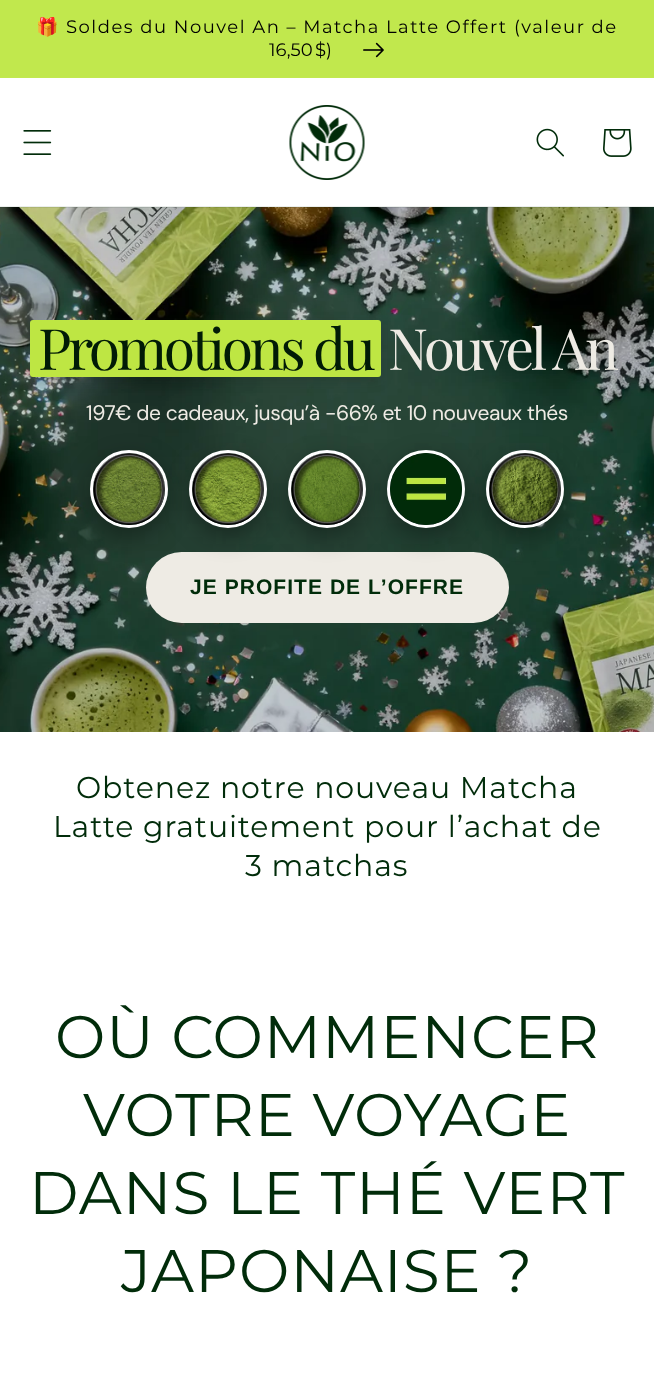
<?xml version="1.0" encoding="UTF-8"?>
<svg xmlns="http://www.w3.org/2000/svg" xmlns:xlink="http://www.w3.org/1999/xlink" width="654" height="1392">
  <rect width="100%" height="100%" fill="#ffffff" />
  <rect y="77" width="654" height="1" fill="#c2e851" />
  <rect width="654" height="77" fill="#c1e84d" />
  <image x="363" y="42" width="21" height="16" xlink:href="image1.png" />
  <image x="0" y="207" width="654" height="525" xlink:href="image6.png" />
  <rect y="206" width="654" height="2" fill="#012c0a" fill-opacity="0.08" />
  <image x="23" y="130" width="29" height="25" xlink:href="image2.png" />
  <image x="289" y="105" width="76" height="75" xlink:href="image3.png" />
  <image x="536" y="128" width="28" height="29" xlink:href="image4.png" />
  <image x="603" y="129" width="29" height="28" xlink:href="image5.png" />
  <rect x="30" y="324" width="351" height="57" rx="3" fill="#181818" fill-opacity="0.15" filter="blur(6px)" />
  <rect x="30" y="320" width="351" height="57" rx="3" fill="#bee643" />
  <rect x="146" y="552" width="363" height="71" rx="35.5" fill="#eeebe4" />
  <rect x="90" y="459" width="78" height="78" rx="39" fill="#000000" fill-opacity="0.35" filter="blur(12px)" />
  <circle cx="129" cy="489" r="37.5" fill="none" stroke="#ffffff" stroke-width="3" />
  <image x="93" y="453" width="72" height="72" xlink:href="image7.png" />
  <rect x="189" y="459" width="78" height="78" rx="39" fill="#000000" fill-opacity="0.35" filter="blur(12px)" />
  <circle cx="228" cy="489" r="37.5" fill="none" stroke="#ffffff" stroke-width="3" />
  <image x="192" y="453" width="72" height="72" xlink:href="image8.png" />
  <rect x="288" y="459" width="78" height="78" rx="39" fill="#000000" fill-opacity="0.35" filter="blur(12px)" />
  <circle cx="327" cy="489" r="37.5" fill="none" stroke="#ffffff" stroke-width="3" />
  <image x="291" y="453" width="72" height="72" xlink:href="image9.png" />
  <rect x="387" y="459" width="78" height="78" rx="39" fill="#000000" fill-opacity="0.35" filter="blur(12px)" />
  <circle cx="426" cy="489" r="37.5" fill="none" stroke="#ffffff" stroke-width="3" />
  <image x="390" y="453" width="72" height="72" xlink:href="image10.png" />
  <rect x="486" y="459" width="78" height="78" rx="39" fill="#000000" fill-opacity="0.35" filter="blur(12px)" />
  <circle cx="525" cy="489" r="37.5" fill="none" stroke="#ffffff" stroke-width="3" />
  <image x="489" y="453" width="72" height="72" xlink:href="image11.png" />
  <text x="36" y="33" style="font-family: Noto Color Emoji; font-size: 18px; letter-spacing: 1.5px; fill: #000000">🎁</text>
  <text x="66" y="33" style="font-family: Montserrat; font-size: 18px; letter-spacing: 1.5px; fill: #000000">Soldes du Nouvel An – Matcha Latte Offert (valeur de</text>
  <text x="269" y="56" style="font-family: Montserrat; font-size: 18px; letter-spacing: 1.5px; fill: #000000">16,50 $)</text>
  <text x="38" y="370" style="font-family: Playfair Display; font-size: 57px; letter-spacing: -3.4px; fill: #011b06">Promotions du</text>
  <text x="388" y="370" style="font-family: Playfair Display; font-size: 57px; letter-spacing: -3.4px; fill: #eeebe4">Nouvel An</text>
  <text x="86" y="420" style="font-family: DM Sans; font-size: 21px; letter-spacing: -0.4px; fill: #eeebe4">197€ de cadeaux, jusqu’à -66% et 10 nouveaux thés</text>
  <text x="190" y="594" style="font-family: Liberation Sans; font-size: 21px; font-weight: bold; letter-spacing: 1.05px; fill: #012c0a">JE PROFITE DE L’OFFRE</text>
  <text x="76" y="798" style="font-family: Montserrat; font-size: 30px; letter-spacing: 0.9px; fill: #012c0a">Obtenez notre nouveau Matcha</text>
  <text x="53" y="837" style="font-family: Montserrat; font-size: 30px; letter-spacing: 0.9px; fill: #012c0a">Latte gratuitement pour l’achat de</text>
  <text x="245" y="876" style="font-family: Montserrat; font-size: 30px; letter-spacing: 0.9px; fill: #012c0a">3 matchas</text>
  <text x="55" y="1058" style="font-family: Montserrat; font-size: 60px; letter-spacing: 0.9px; fill: #012c0a">OÙ COMMENCER</text>
  <text x="83" y="1136" style="font-family: Montserrat; font-size: 60px; letter-spacing: 0.9px; fill: #012c0a">VOTRE VOYAGE</text>
  <text x="29" y="1214" style="font-family: Montserrat; font-size: 60px; letter-spacing: 0.9px; fill: #012c0a">DANS LE THÉ VERT</text>
  <text x="121" y="1292" style="font-family: Montserrat; font-size: 60px; letter-spacing: 0.9px; fill: #012c0a">JAPONAISE ?</text>
</svg>
